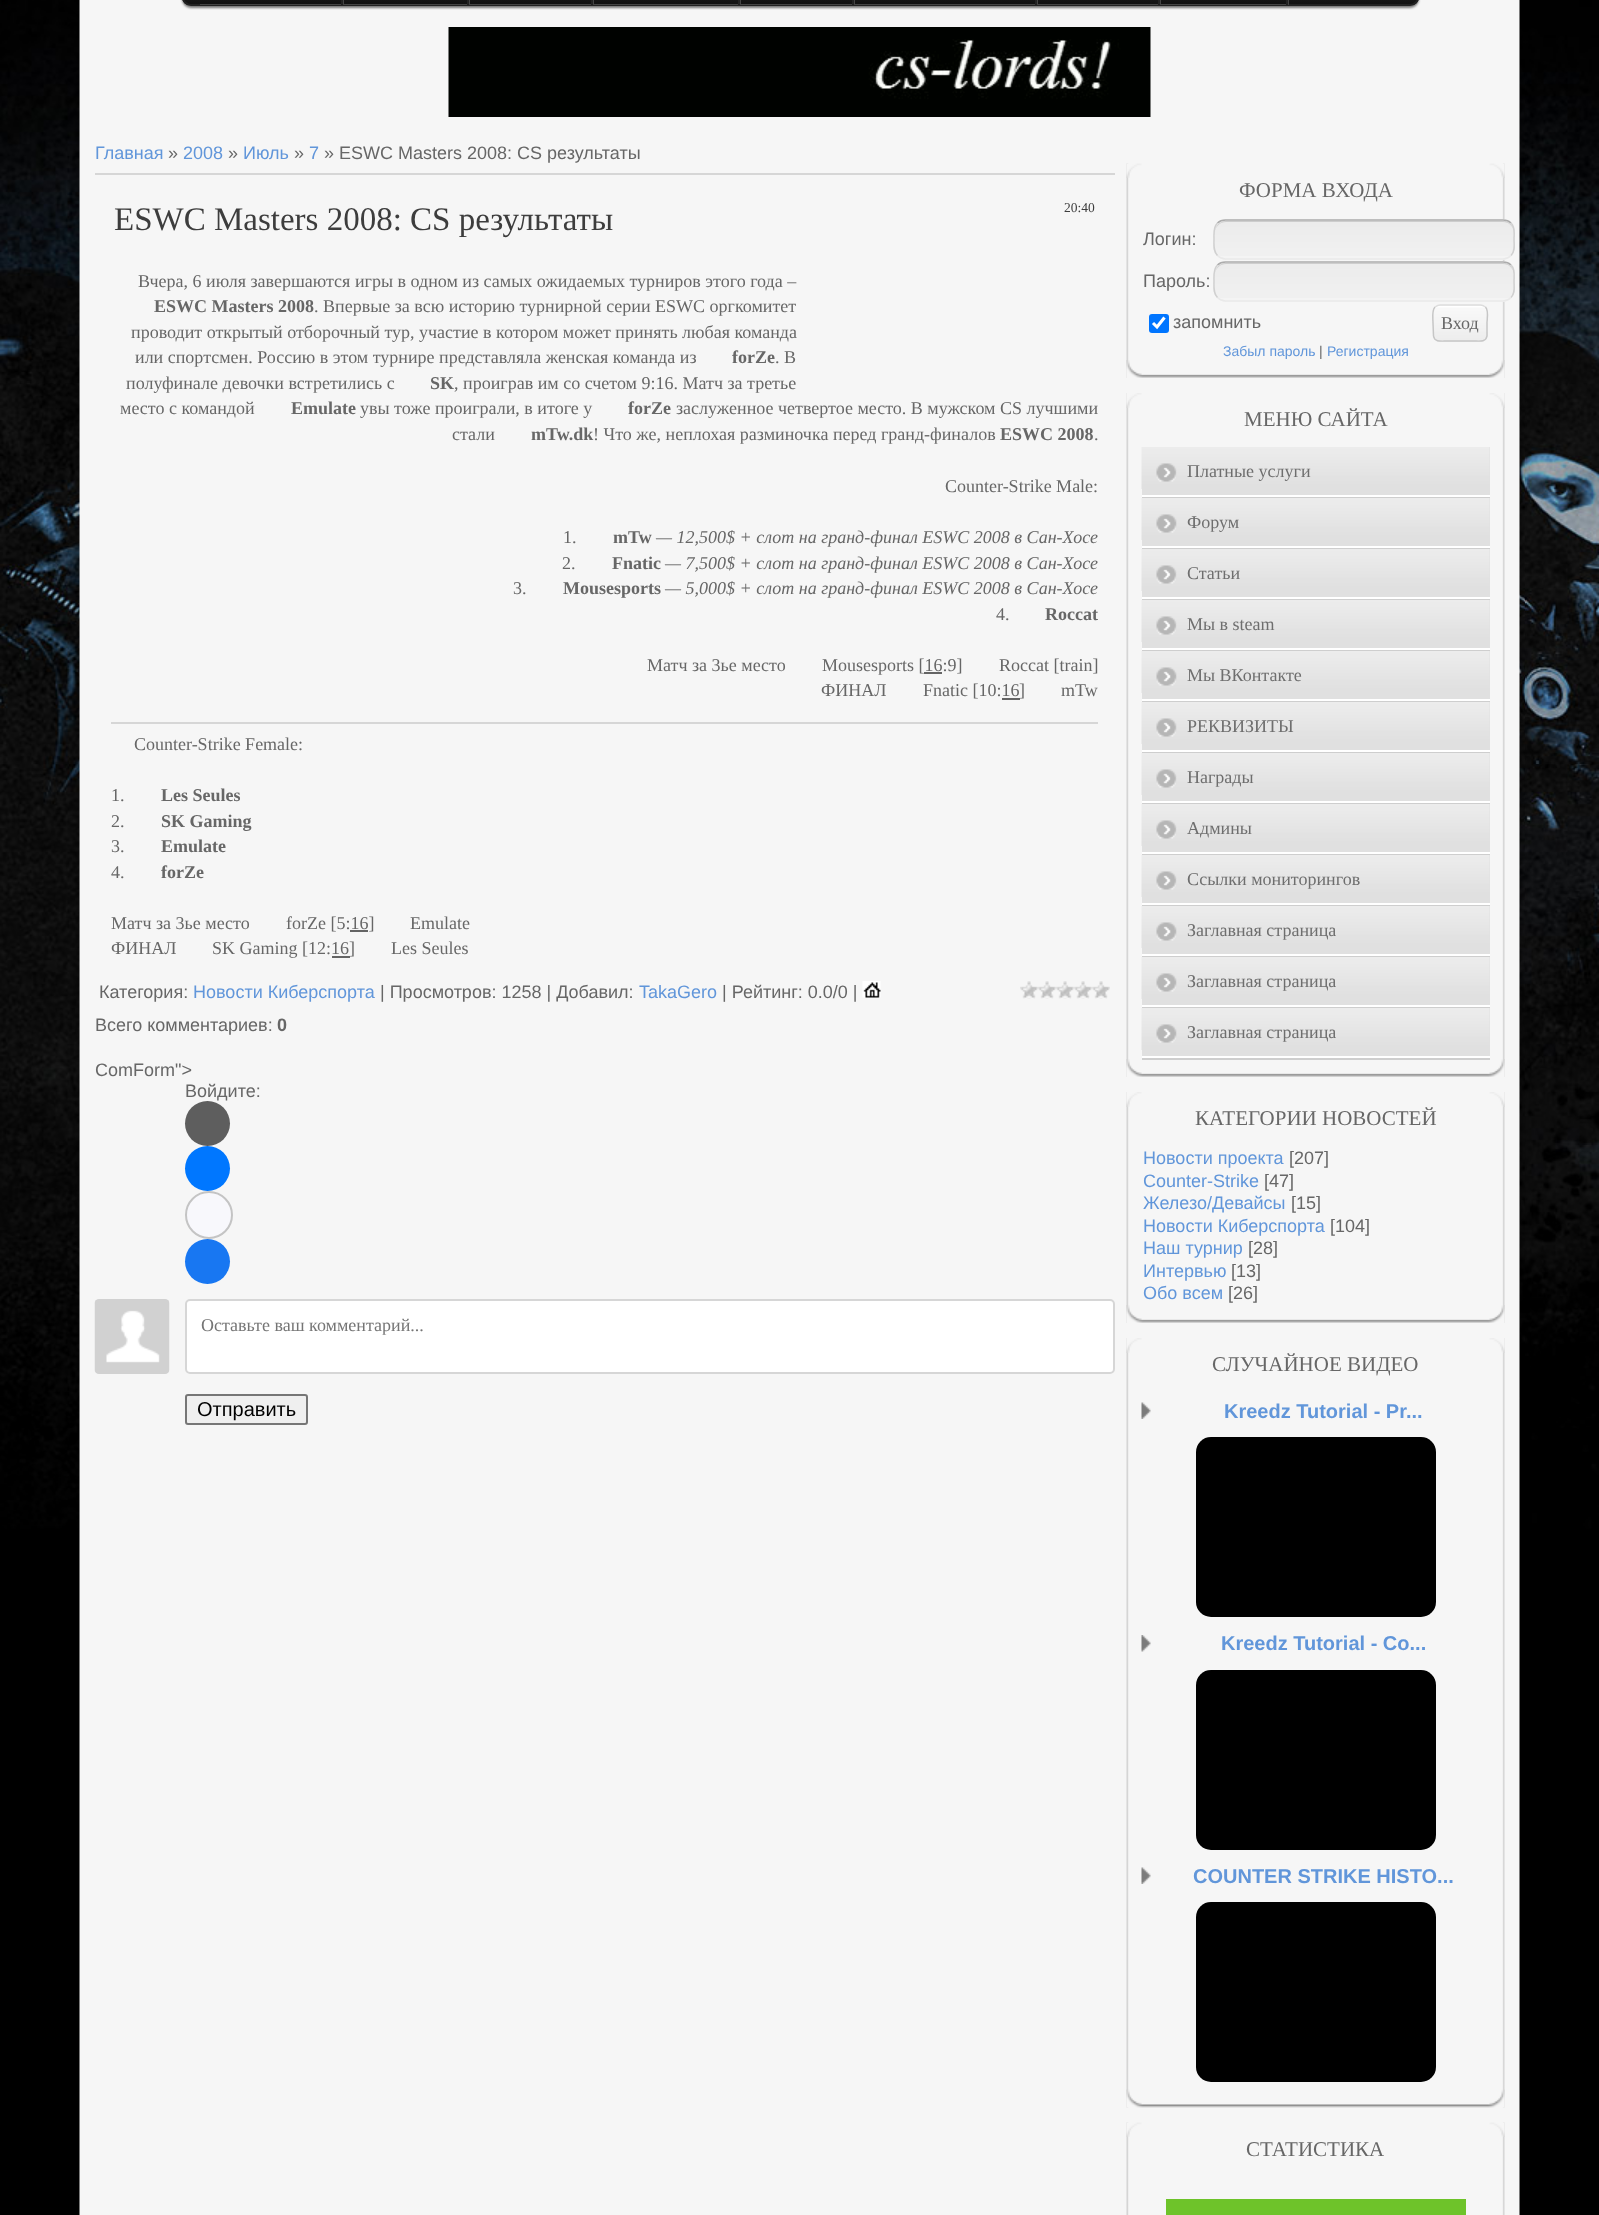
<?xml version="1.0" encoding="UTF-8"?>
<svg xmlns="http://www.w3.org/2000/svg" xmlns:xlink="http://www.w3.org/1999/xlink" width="1599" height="2215">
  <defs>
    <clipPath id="clip1"><rect x="182" y="-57" width="1237" height="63" rx="9" /></clipPath>
    <linearGradient id="g1" gradientUnits="userSpaceOnUse" x1="800" y1="-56" x2="800" y2="4.5"><stop offset="0" stop-color="#444444" /><stop offset="1" stop-color="#111111" /></linearGradient>
  </defs>
  <rect width="100%" height="100%" fill="#000000" />
  <image x="0" y="0" width="1599" height="1529" xlink:href="image1.png" />
  <image x="70" y="0" width="1460" height="2215" xlink:href="image2.png" />
  <rect x="182" y="-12" width="1237" height="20" rx="9" fill="#777777" filter="blur(1px)" />
  <g clip-path="url(#clip1)">
    <rect x="182" width="1237" height="5" fill="url(#g1)" />
  </g>
  <rect x="183" y="-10" width="1235" height="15" rx="8" fill="none" stroke="#222222" stroke-width="2" />
  <path d="M 200 4 v 1 h 144 v -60 h -2 v 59 z" fill="#444444" />
  <rect x="341" width="2" height="5" fill="#222222" />
  <path d="M 344 4 v 1 h 126 v -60 h -2 v 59 z" fill="#444444" />
  <rect x="467" width="2" height="5" fill="#222222" />
  <path d="M 470 4 v 1 h 124 v -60 h -2 v 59 z" fill="#444444" />
  <rect x="591" width="2" height="5" fill="#222222" />
  <path d="M 594 4 v 1 h 147 v -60 h -1 v 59 z" fill="#444444" />
  <rect x="738" width="2" height="5" fill="#222222" />
  <path d="M 741 4 v 1 h 114 v -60 h -1 v 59 z" fill="#444444" />
  <rect x="852" width="2" height="5" fill="#222222" />
  <path d="M 855 4 v 1 h 183 v -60 h -2 v 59 z" fill="#444444" />
  <rect x="1035" width="2" height="5" fill="#222222" />
  <path d="M 1038 4 v 1 h 123 v -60 h -1 v 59 z" fill="#444444" />
  <rect x="1158" width="2" height="5" fill="#222222" />
  <path d="M 1161 4 v 1 h 128 v -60 h -2 v 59 z" fill="#444444" />
  <rect x="1286" width="2" height="5" fill="#222222" />
  <image x="448" y="27" width="703" height="90" xlink:href="image3.png" />
  <rect x="95" y="173" width="1020" height="2" fill="#d6d6d6" />
  <rect x="111" y="722" width="987" height="2" fill="#d6d6d6" />
  <image x="862" y="981" width="19" height="17" xlink:href="image4.png" />
  <image x="1020" y="981" width="90" height="18" xlink:href="image5.png" />
  <circle cx="207.5" cy="1123.5" r="22.5" fill="#5e5e5e" />
  <circle cx="207.5" cy="1168.5" r="22.5" fill="#0077ff" />
  <circle cx="209" cy="1215" r="23" fill="#f8f8fc" stroke="#c4c4c4" stroke-width="2" />
  <circle cx="207.5" cy="1261.5" r="22.5" fill="#1877f2" />
  <image x="94" y="1299" width="76" height="75" xlink:href="image6.png" />
  <rect x="186" y="1300" width="928" height="73" rx="4" fill="#ffffff" stroke="#d6d6d6" stroke-width="2" />
  <rect x="186" y="1395" width="121" height="29" rx="2" fill="#efefef" stroke="#767676" stroke-width="2" />
  <image x="1126" y="163" width="379" height="215" xlink:href="image7.png" />
  <image x="1126" y="163" width="379" height="15" xlink:href="image8.png" />
  <rect x="1214" y="219" width="301" height="41" rx="12" fill="#f4f4f4" />
  <image x="1214" y="220" width="301" height="36" xlink:href="image9.png" />
  <path d="M 1226 222 h 277 c 6 0 11 5 11 10 c 0 -6 -5 -11 -11 -11 h -277 c -6 0 -11 5 -11 11 c 0 -5 5 -10 11 -10 z" fill="#cdcdcd" />
  <path d="M 1217.5 223 c 2 -2 5 -3 8 -3 h 277.5 c 3 0 6 1 8 3" fill="none" stroke="#acacac" stroke-width="1.5" />
  <path d="M 1511 223 c 4.5 4.5 3 10.5 3 16 c 0 6 1.5 12 -3 16.5" fill="none" stroke="#d0d0d0" stroke-width="1.5" />
  <path d="M 1511 255.5 c -2 2 -5 3.5 -8 3.5 h -277.5 c -3 0 -6 -1.5 -8 -3.5" fill="none" stroke="#e9e9e9" stroke-width="1.5" />
  <path d="M 1217.5 255.5 c -4.5 -4.5 -3.5 -10.5 -3.5 -16.5 c 0 -5.5 -1 -11.5 3.5 -16" fill="none" stroke="#d0d0d0" stroke-width="1.5" />
  <rect x="1214" y="261" width="301" height="41" rx="12" fill="#f4f4f4" />
  <image x="1214" y="262" width="301" height="36" xlink:href="image9.png" />
  <path d="M 1226 264 h 277 c 6 0 11 5 11 10 c 0 -6 -5 -11 -11 -11 h -277 c -6 0 -11 5 -11 11 c 0 -5 5 -10 11 -10 z" fill="#cdcdcd" />
  <path d="M 1217.5 265 c 2 -2 5 -3 8 -3 h 277.5 c 3 0 6 1 8 3" fill="none" stroke="#acacac" stroke-width="1.5" />
  <path d="M 1511 265 c 4.5 4.5 3 10.5 3 16 c 0 6 1.5 12 -3 16.5" fill="none" stroke="#d0d0d0" stroke-width="1.5" />
  <path d="M 1511 297.5 c -2 2 -5 3.5 -8 3.5 h -277.5 c -3 0 -6 -1.5 -8 -3.5" fill="none" stroke="#e9e9e9" stroke-width="1.5" />
  <path d="M 1217.5 297.5 c -4.5 -4.5 -3.5 -10.5 -3.5 -16.5 c 0 -5.5 -1 -11.5 3.5 -16" fill="none" stroke="#d0d0d0" stroke-width="1.5" />
  <rect x="1149" y="314" width="20" height="19" rx="3" fill="#0075ff" />
  <path d="M 1153 323 l 4 4 l 7.5 -9.5" fill="none" stroke="#ffffff" stroke-width="3.1" />
  <image x="1433" y="306" width="55" height="36" xlink:href="image10.png" />
  <path d="M 1435 307 c 1.5 -1 3 -2 5 -2 h 40.5 c 2 0 3.5 1 5 2" fill="none" stroke="#dddddd" stroke-width="1.5" />
  <path d="M 1485.5 307 c 3.5 3.5 1.5 12 1.5 16 v 13 c -1 6.5 -8.5 5 -13 5 h -27 c -5 0 -12.5 1.5 -13.5 -5 l -0.5 -13 c 0 -4 -1.5 -12.5 2 -16" fill="none" stroke="#c6c6c6" stroke-width="1.5" />
  <image x="1126" y="360" width="379" height="18" xlink:href="image11.png" />
  <image x="1126" y="393" width="379" height="684" xlink:href="image12.png" />
  <image x="1126" y="393" width="379" height="15" xlink:href="image13.png" />
  <rect x="1142" y="447" width="348" height="48" fill="#e0e0e0" />
  <image x="1141" y="447" width="349" height="42" xlink:href="image14.png" />
  <rect x="1142" y="497" width="348" height="1" fill="#cecece" />
  <rect x="1142" y="495" width="348" height="2" fill="#ffffff" />
  <image x="1156" y="463" width="21" height="19" xlink:href="image15.png" />
  <rect x="1142" y="498" width="348" height="48" fill="#e0e0e0" />
  <image x="1141" y="498" width="349" height="42" xlink:href="image14.png" />
  <rect x="1142" y="548" width="348" height="1" fill="#cecece" />
  <rect x="1142" y="546" width="348" height="2" fill="#ffffff" />
  <image x="1156" y="514" width="21" height="19" xlink:href="image16.png" />
  <rect x="1142" y="549" width="348" height="48" fill="#e0e0e0" />
  <image x="1141" y="549" width="349" height="42" xlink:href="image14.png" />
  <rect x="1142" y="599" width="348" height="1" fill="#cecece" />
  <rect x="1142" y="597" width="348" height="2" fill="#ffffff" />
  <image x="1156" y="565" width="21" height="19" xlink:href="image17.png" />
  <rect x="1142" y="600" width="348" height="48" fill="#e0e0e0" />
  <image x="1141" y="600" width="349" height="42" xlink:href="image14.png" />
  <rect x="1142" y="650" width="348" height="1" fill="#cecece" />
  <rect x="1142" y="648" width="348" height="2" fill="#ffffff" />
  <image x="1156" y="616" width="21" height="19" xlink:href="image18.png" />
  <rect x="1142" y="651" width="348" height="48" fill="#e0e0e0" />
  <image x="1141" y="651" width="349" height="42" xlink:href="image14.png" />
  <rect x="1142" y="701" width="348" height="1" fill="#cecece" />
  <rect x="1142" y="699" width="348" height="2" fill="#ffffff" />
  <image x="1156" y="667" width="21" height="19" xlink:href="image19.png" />
  <rect x="1142" y="702" width="348" height="48" fill="#e0e0e0" />
  <image x="1141" y="702" width="349" height="42" xlink:href="image14.png" />
  <rect x="1142" y="752" width="348" height="1" fill="#cecece" />
  <rect x="1142" y="750" width="348" height="2" fill="#ffffff" />
  <image x="1156" y="718" width="21" height="19" xlink:href="image20.png" />
  <rect x="1142" y="753" width="348" height="48" fill="#e0e0e0" />
  <image x="1141" y="753" width="349" height="42" xlink:href="image14.png" />
  <rect x="1142" y="803" width="348" height="1" fill="#cecece" />
  <rect x="1142" y="801" width="348" height="2" fill="#ffffff" />
  <image x="1156" y="769" width="21" height="19" xlink:href="image17.png" />
  <rect x="1142" y="804" width="348" height="48" fill="#e0e0e0" />
  <image x="1141" y="804" width="349" height="42" xlink:href="image14.png" />
  <rect x="1142" y="854" width="348" height="1" fill="#cecece" />
  <rect x="1142" y="852" width="348" height="2" fill="#ffffff" />
  <image x="1156" y="820" width="21" height="19" xlink:href="image15.png" />
  <rect x="1142" y="855" width="348" height="48" fill="#e0e0e0" />
  <image x="1141" y="855" width="349" height="42" xlink:href="image14.png" />
  <rect x="1142" y="905" width="348" height="1" fill="#cecece" />
  <rect x="1142" y="903" width="348" height="2" fill="#ffffff" />
  <image x="1156" y="871" width="21" height="19" xlink:href="image21.png" />
  <rect x="1142" y="906" width="348" height="48" fill="#e0e0e0" />
  <image x="1141" y="906" width="349" height="42" xlink:href="image14.png" />
  <rect x="1142" y="956" width="348" height="1" fill="#cecece" />
  <rect x="1142" y="954" width="348" height="2" fill="#ffffff" />
  <image x="1156" y="922" width="21" height="19" xlink:href="image22.png" />
  <rect x="1142" y="957" width="348" height="48" fill="#e0e0e0" />
  <image x="1141" y="957" width="349" height="42" xlink:href="image14.png" />
  <rect x="1142" y="1007" width="348" height="1" fill="#cecece" />
  <rect x="1142" y="1005" width="348" height="2" fill="#ffffff" />
  <image x="1156" y="973" width="21" height="19" xlink:href="image22.png" />
  <rect x="1142" y="1008" width="348" height="48" fill="#e0e0e0" />
  <image x="1141" y="1008" width="349" height="42" xlink:href="image14.png" />
  <image x="1126" y="1059" width="379" height="18" xlink:href="image11.png" />
  <rect x="1142" y="1058" width="348" height="2" fill="#cecece" />
  <rect x="1142" y="1056" width="348" height="2" fill="#ffffff" />
  <image x="1156" y="1024" width="21" height="19" xlink:href="image22.png" />
  <image x="1126" y="1092" width="379" height="231" xlink:href="image23.png" />
  <image x="1126" y="1092" width="379" height="15" xlink:href="image13.png" />
  <image x="1126" y="1305" width="379" height="18" xlink:href="image11.png" />
  <image x="1126" y="1338" width="379" height="770" xlink:href="image24.png" />
  <image x="1126" y="1338" width="379" height="15" xlink:href="image13.png" />
  <image x="1141" y="1402" width="10" height="17" xlink:href="image25.png" />
  <rect x="1196" y="1437" width="240" height="180" rx="15" fill="#000000" />
  <image x="1141" y="1635" width="10" height="17" xlink:href="image26.png" />
  <rect x="1196" y="1670" width="240" height="180" rx="15" fill="#000000" />
  <image x="1141" y="1867" width="10" height="17" xlink:href="image25.png" />
  <rect x="1196" y="1902" width="240" height="180" rx="15" fill="#000000" />
  <image x="1126" y="2089" width="379" height="19" xlink:href="image27.png" />
  <image x="1126" y="2122" width="379" height="93" xlink:href="image28.png" />
  <image x="1126" y="2122" width="379" height="15" xlink:href="image8.png" />
  <rect x="1166" y="2199" width="300" height="16" fill="#6ec32a" />
  <text x="95" y="159" style="font-family: Liberation Sans; font-size: 18px; fill: #6196da">Главная</text>
  <text x="168" y="159" style="font-family: Liberation Sans; font-size: 18px; fill: #676767">»</text>
  <text x="183" y="159" style="font-family: Liberation Sans; font-size: 18px; fill: #6196da">2008</text>
  <text x="228" y="159" style="font-family: Liberation Sans; font-size: 18px; fill: #676767">»</text>
  <text x="243" y="159" style="font-family: Liberation Sans; font-size: 18px; fill: #6196da">Июль</text>
  <text x="294" y="159" style="font-family: Liberation Sans; font-size: 18px; fill: #676767">»</text>
  <text x="309" y="159" style="font-family: Liberation Sans; font-size: 18px; fill: #6196da">7</text>
  <text x="324" y="159" style="font-family: Liberation Sans; font-size: 18px; fill: #676767">» ESWC Masters 2008: CS результаты</text>
  <text x="114" y="230" style="font-family: Liberation Serif; font-size: 33px; fill: #3d3d3d">ESWC Masters 2008: CS результаты</text>
  <text x="1064" y="212" style="font-family: Liberation Serif; font-size: 13.5px; fill: #3d3d3d">20:40</text>
  <text x="138" y="287" style="font-family: Liberation Serif; font-size: 18px; fill: #676767">Вчера, 6 июля завершаются игры в одном из самых ожидаемых турниров этого года –</text>
  <text x="154" y="312" style="font-family: Liberation Serif; font-size: 18px; font-weight: bold; fill: #676767">ESWC Masters 2008</text>
  <text x="314" y="312" style="font-family: Liberation Serif; font-size: 18px; fill: #676767">. Впервые за всю историю турнирной серии ESWC оргкомитет</text>
  <text x="131" y="338" style="font-family: Liberation Serif; font-size: 18px; fill: #676767">проводит открытый отборочный тур, участие в котором может принять любая команда</text>
  <text x="135" y="363" style="font-family: Liberation Serif; font-size: 18px; fill: #676767">или спортсмен. Россию в этом турнире представляла женская команда из</text>
  <text x="732" y="363" style="font-family: Liberation Serif; font-size: 18px; font-weight: bold; fill: #676767">forZe</text>
  <text x="775" y="363" style="font-family: Liberation Serif; font-size: 18px; fill: #676767">. В</text>
  <text x="126" y="389" style="font-family: Liberation Serif; font-size: 18px; fill: #676767">полуфинале девочки встретились с</text>
  <text x="430" y="389" style="font-family: Liberation Serif; font-size: 18px; font-weight: bold; fill: #676767">SK</text>
  <text x="454" y="389" style="font-family: Liberation Serif; font-size: 18px; fill: #676767">, проиграв им со счетом 9:16. Матч за третье</text>
  <text x="120" y="414" style="font-family: Liberation Serif; font-size: 18px; fill: #676767">место с командой</text>
  <text x="291" y="414" style="font-family: Liberation Serif; font-size: 18px; font-weight: bold; fill: #676767">Emulate</text>
  <text x="360" y="414" style="font-family: Liberation Serif; font-size: 18px; fill: #676767">увы тоже проиграли, в итоге у</text>
  <text x="628" y="414" style="font-family: Liberation Serif; font-size: 18px; font-weight: bold; fill: #676767">forZe</text>
  <text x="676" y="414" style="font-family: Liberation Serif; font-size: 18px; fill: #676767">заслуженное четвертое место. В мужском CS лучшими</text>
  <text x="452" y="440" style="font-family: Liberation Serif; font-size: 18px; fill: #676767">стали</text>
  <text x="531" y="440" style="font-family: Liberation Serif; font-size: 18px; font-weight: bold; fill: #676767">mTw.dk</text>
  <text x="593" y="440" style="font-family: Liberation Serif; font-size: 18px; fill: #676767">! Что же, неплохая разминочка перед гранд-финалов</text>
  <text x="1000" y="440" style="font-family: Liberation Serif; font-size: 18px; font-weight: bold; fill: #676767">ESWC 2008</text>
  <text x="1094" y="440" style="font-family: Liberation Serif; font-size: 18px; fill: #676767">.</text>
  <text x="945" y="492" style="font-family: Liberation Serif; font-size: 18px; fill: #676767">Counter-Strike Male:</text>
  <text x="563" y="543" style="font-family: Liberation Serif; font-size: 18px; fill: #676767">1.</text>
  <text x="613" y="543" style="font-family: Liberation Serif; font-size: 18px; font-weight: bold; fill: #676767">mTw</text>
  <text x="656" y="543" style="font-family: Liberation Serif; font-size: 18px; font-style: italic; fill: #676767">— 12,500$ + слот на гранд-финал ESWC 2008 в Сан-Хосе</text>
  <text x="562" y="569" style="font-family: Liberation Serif; font-size: 18px; fill: #676767">2.</text>
  <text x="612" y="569" style="font-family: Liberation Serif; font-size: 18px; font-weight: bold; fill: #676767">Fnatic</text>
  <text x="665" y="569" style="font-family: Liberation Serif; font-size: 18px; font-style: italic; fill: #676767">— 7,500$ + слот на гранд-финал ESWC 2008 в Сан-Хосе</text>
  <text x="513" y="594" style="font-family: Liberation Serif; font-size: 18px; fill: #676767">3.</text>
  <text x="563" y="594" style="font-family: Liberation Serif; font-size: 18px; font-weight: bold; fill: #676767">Mousesports</text>
  <text x="665" y="594" style="font-family: Liberation Serif; font-size: 18px; font-style: italic; fill: #676767">— 5,000$ + слот на гранд-финал ESWC 2008 в Сан-Хосе</text>
  <text x="996" y="620" style="font-family: Liberation Serif; font-size: 18px; fill: #676767">4.</text>
  <text x="1045" y="620" style="font-family: Liberation Serif; font-size: 18px; font-weight: bold; fill: #676767">Roccat</text>
  <text x="647" y="671" style="font-family: Liberation Serif; font-size: 18px; fill: #676767">Матч за 3ье место</text>
  <text x="822" y="671" style="font-family: Liberation Serif; font-size: 18px; fill: #676767">Mousesports [16:9]</text>
  <rect x="924" y="672" width="18" height="2" fill="#646464" />
  <text x="999" y="671" style="font-family: Liberation Serif; font-size: 18px; fill: #676767">Roccat [train]</text>
  <text x="821" y="696" style="font-family: Liberation Serif; font-size: 18px; fill: #676767">ФИНАЛ</text>
  <text x="923" y="696" style="font-family: Liberation Serif; font-size: 18px; fill: #676767">Fnatic [10:16</text>
  <rect x="1002" y="698" width="18" height="2" fill="#646464" />
  <text x="1019" y="696" style="font-family: Liberation Serif; font-size: 18px; fill: #676767">]</text>
  <text x="1061" y="696" style="font-family: Liberation Serif; font-size: 18px; fill: #676767">mTw</text>
  <text x="134" y="750" style="font-family: Liberation Serif; font-size: 18px; fill: #676767">Counter-Strike Female:</text>
  <text x="111" y="801" style="font-family: Liberation Serif; font-size: 18px; fill: #676767">1.</text>
  <text x="161" y="801" style="font-family: Liberation Serif; font-size: 18px; font-weight: bold; fill: #676767">Les Seules</text>
  <text x="111" y="827" style="font-family: Liberation Serif; font-size: 18px; fill: #676767">2.</text>
  <text x="161" y="827" style="font-family: Liberation Serif; font-size: 18px; font-weight: bold; fill: #676767">SK Gaming</text>
  <text x="111" y="852" style="font-family: Liberation Serif; font-size: 18px; fill: #676767">3.</text>
  <text x="161" y="852" style="font-family: Liberation Serif; font-size: 18px; font-weight: bold; fill: #676767">Emulate</text>
  <text x="111" y="878" style="font-family: Liberation Serif; font-size: 18px; fill: #676767">4.</text>
  <text x="161" y="878" style="font-family: Liberation Serif; font-size: 18px; font-weight: bold; fill: #676767">forZe</text>
  <text x="111" y="929" style="font-family: Liberation Serif; font-size: 18px; fill: #676767">Матч за 3ье место</text>
  <text x="286" y="929" style="font-family: Liberation Serif; font-size: 18px; fill: #676767">forZe [5:16]</text>
  <text x="410" y="929" style="font-family: Liberation Serif; font-size: 18px; fill: #676767">Emulate</text>
  <rect x="350" y="930" width="18" height="2" fill="#646464" />
  <text x="111" y="954" style="font-family: Liberation Serif; font-size: 18px; fill: #676767">ФИНАЛ</text>
  <text x="212" y="954" style="font-family: Liberation Serif; font-size: 18px; fill: #676767">SK Gaming [12:16]</text>
  <text x="391" y="954" style="font-family: Liberation Serif; font-size: 18px; fill: #676767">Les Seules</text>
  <rect x="332" y="956" width="18" height="2" fill="#646464" />
  <text x="99" y="998" style="font-family: Liberation Sans; font-size: 18px; fill: #676767">Категория:</text>
  <text x="193" y="998" style="font-family: Liberation Sans; font-size: 18px; fill: #6196da">Новости Киберспорта</text>
  <text x="380" y="998" style="font-family: Liberation Sans; font-size: 18px; fill: #676767">| Просмотров: 1258 | Добавил:</text>
  <text x="639" y="998" style="font-family: Liberation Sans; font-size: 18px; fill: #6196da">TakaGero</text>
  <text x="722" y="998" style="font-family: Liberation Sans; font-size: 18px; fill: #676767">| Рейтинг: 0.0/0 |</text>
  <text x="95" y="1031" style="font-family: Liberation Sans; font-size: 18px; fill: #676767">Всего комментариев:</text>
  <text x="277" y="1031" style="font-family: Liberation Sans; font-size: 18px; font-weight: bold; fill: #676767">0</text>
  <text x="95" y="1076" style="font-family: Liberation Sans; font-size: 18px; fill: #676767">ComForm"&gt;</text>
  <text x="185" y="1097" style="font-family: Liberation Sans; font-size: 18px; fill: #676767">Войдите:</text>
  <text x="201" y="1331" style="font-family: Liberation Serif; font-size: 18px; fill: #757575">Оставьте ваш комментарий...</text>
  <text x="197" y="1416" style="font-family: Liberation Sans; font-size: 20px; fill: #000000">Отправить</text>
  <text x="1239" y="197" style="font-family: Liberation Serif; font-size: 21px; fill: #676767">ФОРМА ВХОДА</text>
  <text x="1143" y="245" style="font-family: Liberation Sans; font-size: 18px; fill: #676767">Логин:</text>
  <text x="1143" y="287" style="font-family: Liberation Sans; font-size: 18px; fill: #676767">Пароль:</text>
  <text x="1173" y="328" style="font-family: Liberation Sans; font-size: 18px; fill: #676767">запомнить</text>
  <text x="1441" y="329" style="font-family: Liberation Serif; font-size: 18px; fill: #676767">Вход</text>
  <text x="1223" y="356" style="font-family: Liberation Sans; font-size: 14px; fill: #6196da">Забыл пароль</text>
  <text x="1319" y="356" style="font-family: Liberation Sans; font-size: 14px; fill: #676767">|</text>
  <text x="1327" y="356" style="font-family: Liberation Sans; font-size: 14px; fill: #6196da">Регистрация</text>
  <text x="1244" y="426" style="font-family: Liberation Serif; font-size: 21px; fill: #676767">МЕНЮ САЙТА</text>
  <text x="1187" y="477" style="font-family: Liberation Serif; font-size: 18px; fill: #6e6e6e">Платные услуги</text>
  <text x="1187" y="528" style="font-family: Liberation Serif; font-size: 18px; fill: #6e6e6e">Форум</text>
  <text x="1187" y="579" style="font-family: Liberation Serif; font-size: 18px; fill: #6e6e6e">Статьи</text>
  <text x="1187" y="630" style="font-family: Liberation Serif; font-size: 18px; fill: #6e6e6e">Мы в steam</text>
  <text x="1187" y="681" style="font-family: Liberation Serif; font-size: 18px; fill: #6e6e6e">Мы ВКонтакте</text>
  <text x="1187" y="732" style="font-family: Liberation Serif; font-size: 18px; fill: #6e6e6e">РЕКВИЗИТЫ</text>
  <text x="1187" y="783" style="font-family: Liberation Serif; font-size: 18px; fill: #6e6e6e">Награды</text>
  <text x="1187" y="834" style="font-family: Liberation Serif; font-size: 18px; fill: #6e6e6e">Админы</text>
  <text x="1187" y="885" style="font-family: Liberation Serif; font-size: 18px; fill: #6e6e6e">Ссылки мониторингов</text>
  <text x="1187" y="936" style="font-family: Liberation Serif; font-size: 18px; fill: #6e6e6e">Заглавная страница</text>
  <text x="1187" y="987" style="font-family: Liberation Serif; font-size: 18px; fill: #6e6e6e">Заглавная страница</text>
  <text x="1187" y="1038" style="font-family: Liberation Serif; font-size: 18px; fill: #6e6e6e">Заглавная страница</text>
  <text x="1195" y="1125" style="font-family: Liberation Serif; font-size: 21px; fill: #676767">КАТЕГОРИИ НОВОСТЕЙ</text>
  <text x="1143" y="1164" style="font-family: Liberation Sans; font-size: 18px; fill: #6196da">Новости проекта</text>
  <text x="1289" y="1164" style="font-family: Liberation Sans; font-size: 18px; fill: #676767">[207]</text>
  <text x="1143" y="1187" style="font-family: Liberation Sans; font-size: 18px; fill: #6196da">Counter-Strike</text>
  <text x="1264" y="1187" style="font-family: Liberation Sans; font-size: 18px; fill: #676767">[47]</text>
  <text x="1143" y="1209" style="font-family: Liberation Sans; font-size: 18px; fill: #6196da">Железо/Девайсы</text>
  <text x="1291" y="1209" style="font-family: Liberation Sans; font-size: 18px; fill: #676767">[15]</text>
  <text x="1143" y="1232" style="font-family: Liberation Sans; font-size: 18px; fill: #6196da">Новости Киберспорта</text>
  <text x="1330" y="1232" style="font-family: Liberation Sans; font-size: 18px; fill: #676767">[104]</text>
  <text x="1143" y="1254" style="font-family: Liberation Sans; font-size: 18px; fill: #6196da">Наш турнир</text>
  <text x="1248" y="1254" style="font-family: Liberation Sans; font-size: 18px; fill: #676767">[28]</text>
  <text x="1143" y="1277" style="font-family: Liberation Sans; font-size: 18px; fill: #6196da">Интервью</text>
  <text x="1231" y="1277" style="font-family: Liberation Sans; font-size: 18px; fill: #676767">[13]</text>
  <text x="1143" y="1299" style="font-family: Liberation Sans; font-size: 18px; fill: #6196da">Обо всем</text>
  <text x="1228" y="1299" style="font-family: Liberation Sans; font-size: 18px; fill: #676767">[26]</text>
  <text x="1212" y="1371" style="font-family: Liberation Serif; font-size: 21px; fill: #676767">СЛУЧАЙНОЕ ВИДЕО</text>
  <text x="1224" y="1418" style="font-family: Liberation Sans; font-size: 20px; font-weight: bold; fill: #6196da">Kreedz Tutorial - Pr...</text>
  <text x="1221" y="1650" style="font-family: Liberation Sans; font-size: 20px; font-weight: bold; fill: #6196da">Kreedz Tutorial - Co...</text>
  <text x="1193" y="1883" style="font-family: Liberation Sans; font-size: 20px; font-weight: bold; fill: #6196da">COUNTER STRIKE HISTO...</text>
  <text x="1246" y="2156" style="font-family: Liberation Serif; font-size: 21px; fill: #676767">СТАТИСТИКА</text>
</svg>
